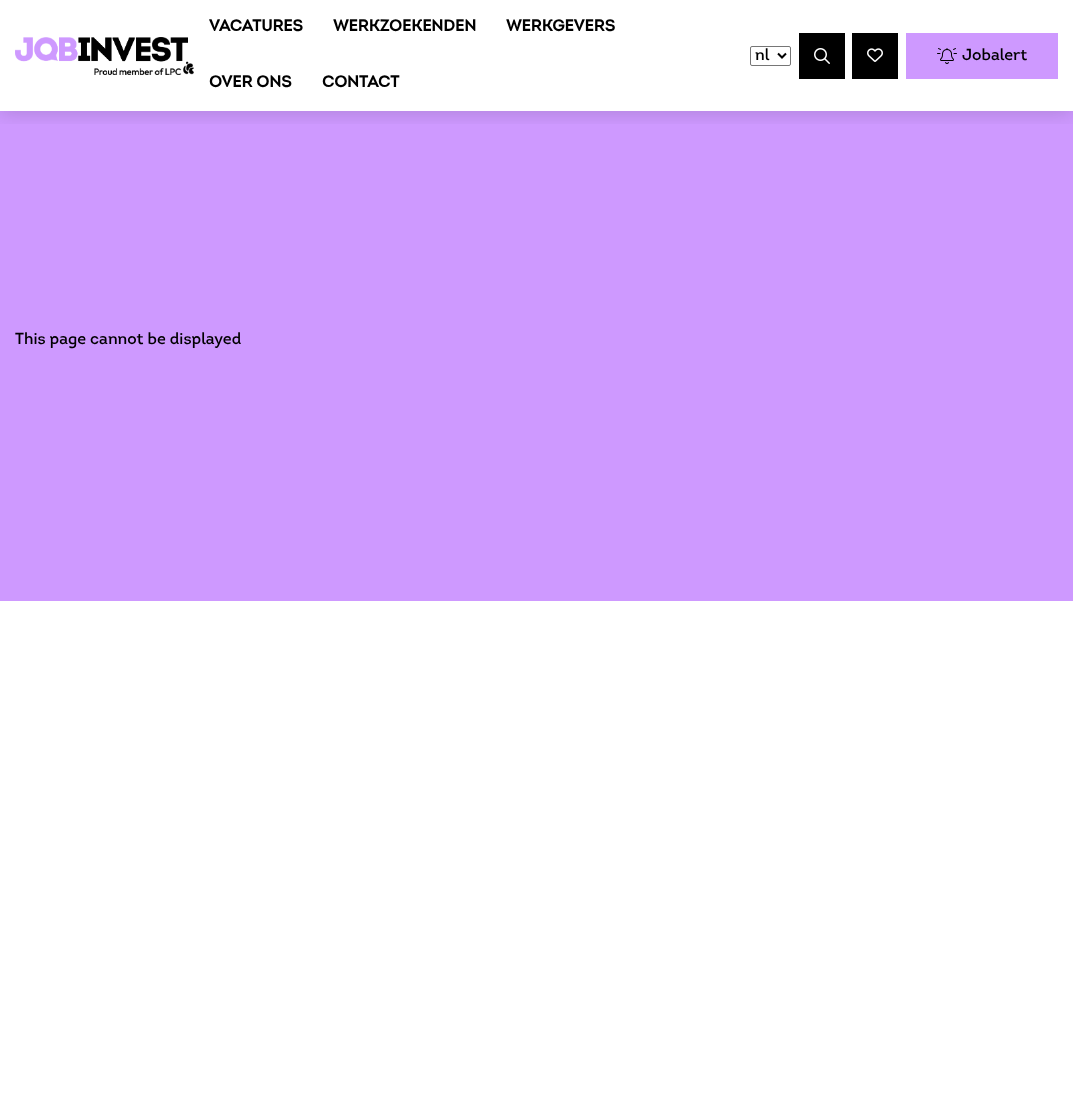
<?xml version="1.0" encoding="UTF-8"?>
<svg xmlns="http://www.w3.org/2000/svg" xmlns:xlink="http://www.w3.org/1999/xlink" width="1073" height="1110">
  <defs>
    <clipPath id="clip1"><rect x="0" y="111" width="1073" height="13" /></clipPath>
  </defs>
  <rect width="100%" height="100%" fill="#ffffff" />
  <rect y="111" width="1073" height="490" fill="#ce99ff" />
  <g clip-path="url(#clip1)">
    <rect y="2" width="1073" height="111" fill="#000000" fill-opacity="0.15" filter="blur(10px)" />
  </g>
  <image x="15" y="37" width="179" height="38" xlink:href="image1.png" />
  <rect x="750.5" y="46.5" width="40" height="19" rx="1.5" fill="none" stroke="#767676" />
  <path d="M 778 53.5 l 4 4 l 4 -4" fill="none" stroke="#000000" stroke-width="2" />
  <rect x="799" y="33" width="46" height="46" fill="#000000" />
  <image x="814" y="48" width="16" height="16" xlink:href="image2.png" />
  <rect x="852" y="33" width="46" height="46" fill="#000000" />
  <image x="867" y="48" width="16" height="14" xlink:href="image3.png" />
  <rect x="906" y="33" width="152" height="46" fill="#ce99ff" />
  <image x="937" y="48" width="20" height="16" xlink:href="image4.png" />
  <text x="209" y="31" style="font-family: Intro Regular; font-size: 16px; font-weight: bold; fill: #000000">VACATURES</text>
  <text x="333" y="31" style="font-family: Intro Regular; font-size: 16px; font-weight: bold; fill: #000000">WERKZOEKENDEN</text>
  <text x="506" y="31" style="font-family: Intro Regular; font-size: 16px; font-weight: bold; fill: #000000">WERKGEVERS</text>
  <text x="209" y="87" style="font-family: Intro Regular; font-size: 16px; font-weight: bold; fill: #000000">OVER ONS</text>
  <text x="322" y="87" style="font-family: Intro Regular; font-size: 16px; font-weight: bold; fill: #000000">CONTACT</text>
  <text x="755" y="60" style="font-family: Intro Regular; font-size: 16px; fill: #000000">nl</text>
  <text x="962" y="60" style="font-family: Intro Regular; font-size: 16px; fill: #000000">Jobalert</text>
  <text x="15" y="344" style="font-family: Intro Regular; font-size: 16px; fill: #000000">This page cannot be displayed</text>
</svg>
